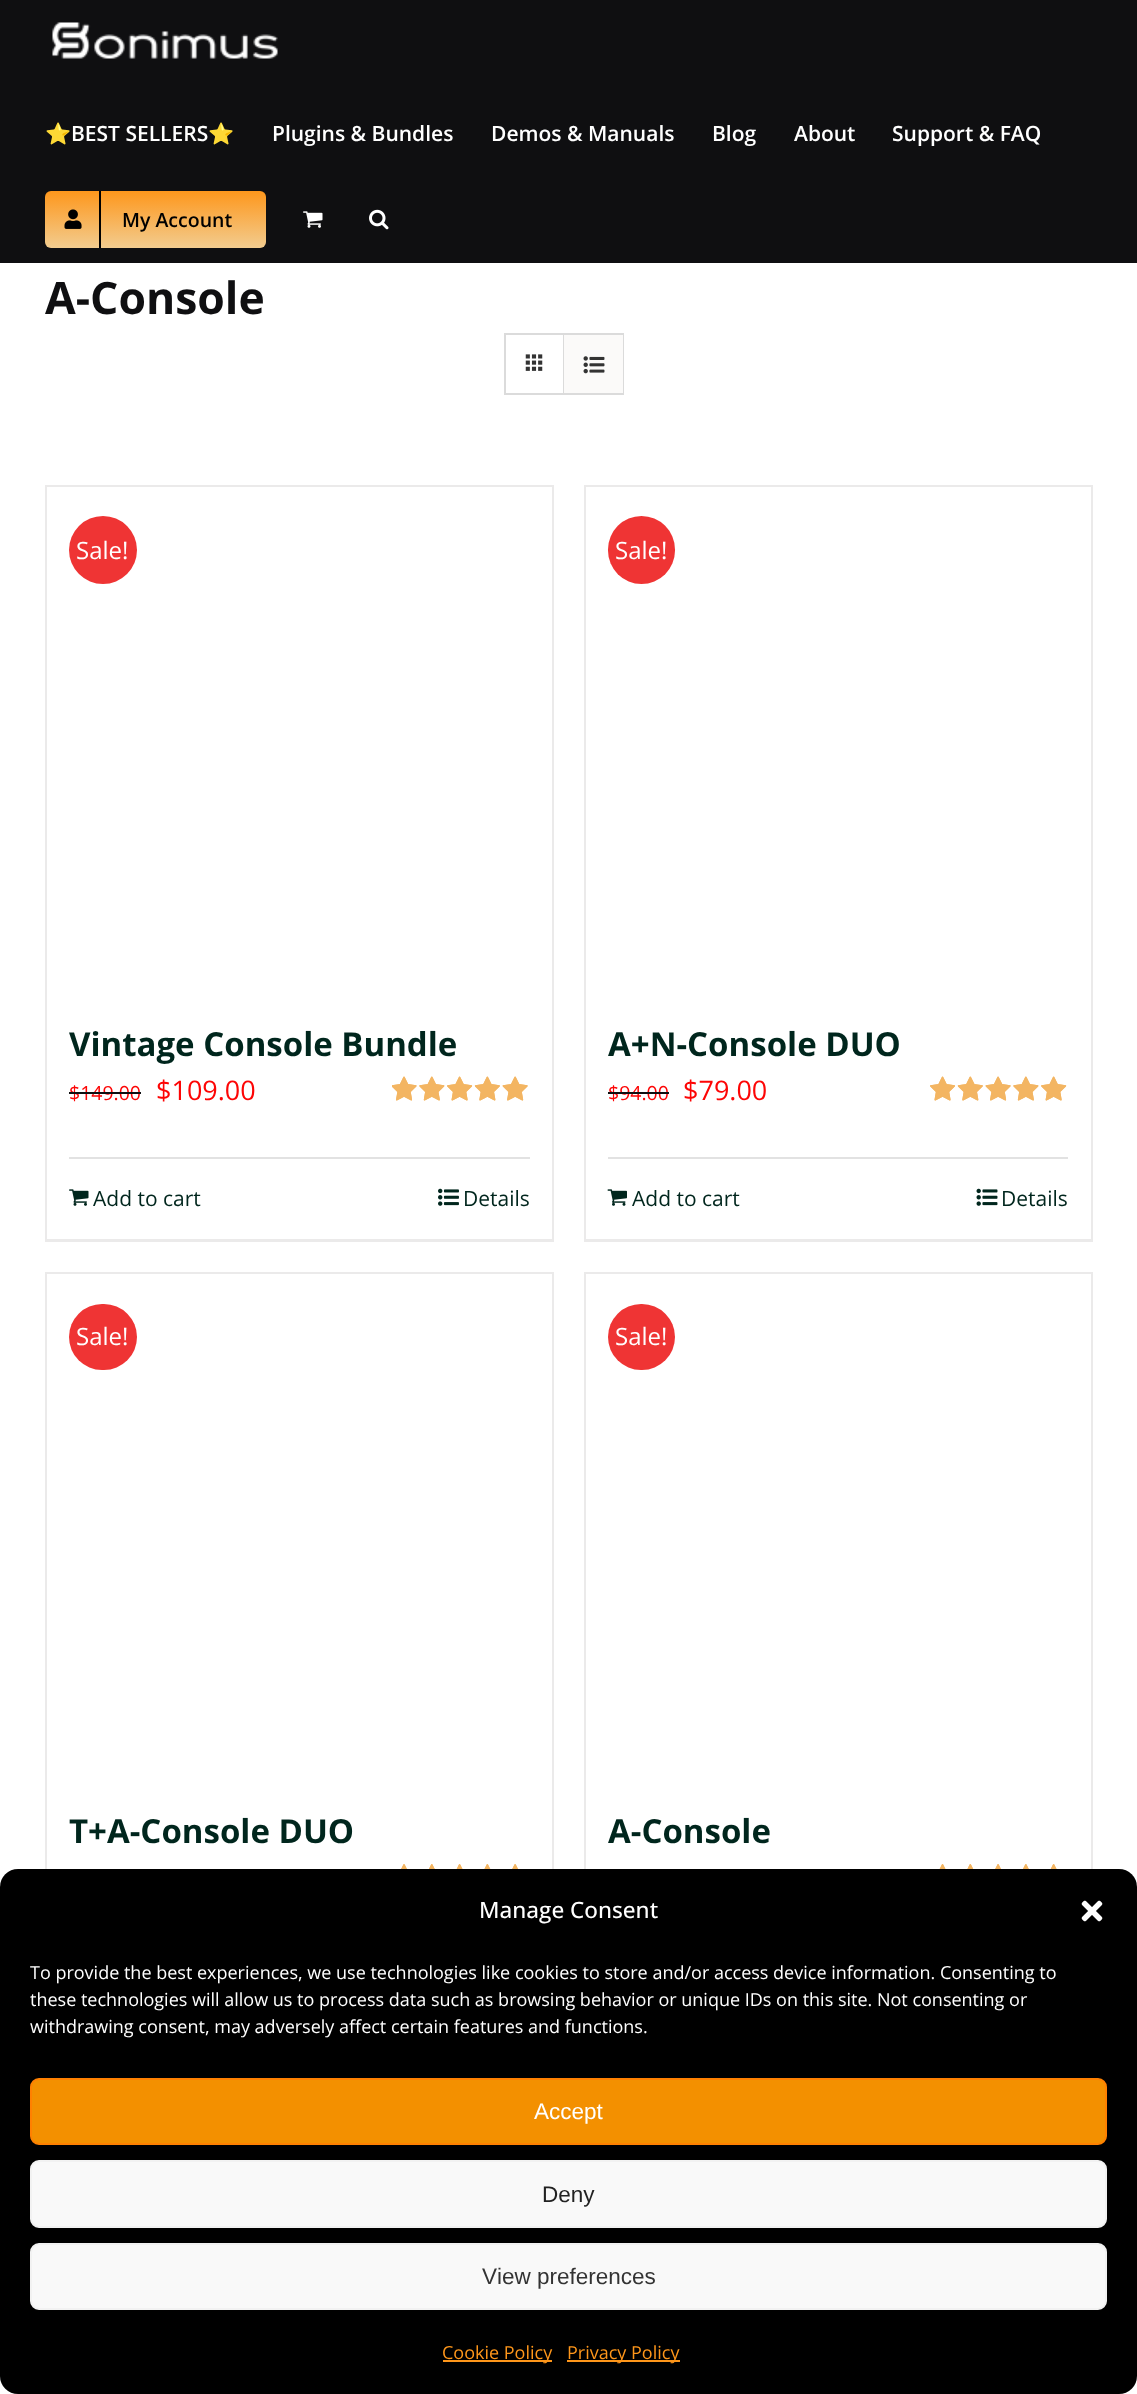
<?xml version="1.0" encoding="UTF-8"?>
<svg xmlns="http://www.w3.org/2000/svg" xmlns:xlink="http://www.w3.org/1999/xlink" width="1137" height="2394">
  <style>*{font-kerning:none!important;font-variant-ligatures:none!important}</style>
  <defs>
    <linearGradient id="g1" gradientUnits="userSpaceOnUse" x1="155" y1="190" x2="155" y2="248"><stop offset="0" stop-color="#fe961a" /><stop offset="1" stop-color="#f2cc8f" /></linearGradient>
  </defs>
  <rect width="100%" height="100%" fill="#ffffff" />
  <rect width="1137" height="263" fill="#0f0f11" />
  <image x="52" y="22" width="226" height="37" xlink:href="image1.png" />
  <rect x="45" y="191" width="221" height="57" rx="6" fill="url(#g1)" />
  <rect x="99" y="191" width="2" height="57" fill="#000000" />
  <image x="64" y="209" width="18" height="20" xlink:href="image2.png" />
  <image x="303" y="211" width="20" height="17" xlink:href="image3.png" />
  <image x="369" y="209" width="20" height="21" xlink:href="image4.png" />
  <rect x="505" y="334" width="118" height="60" fill="none" stroke="#dbdbdb" stroke-width="2" />
  <rect x="563" y="335" width="1" height="58" fill="#dbdbdb" />
  <image x="525" y="354" width="18" height="17" xlink:href="image5.png" />
  <rect x="564" y="335" width="59" height="58" fill="#fbfaf9" />
  <image x="583" y="356" width="22" height="18" xlink:href="image6.png" />
  <rect x="45" y="485" width="509" height="2" fill="#ebeaea" />
  <rect x="552" y="485" width="2" height="757" fill="#ebeaea" />
  <rect x="45" y="1239" width="509" height="3" fill="#ebeaea" />
  <rect x="45" y="485" width="2" height="757" fill="#ebeaea" />
  <circle cx="103" cy="550" r="34" fill="#ef3434" />
  <image x="392" y="1076" width="136" height="25" xlink:href="image7.png" />
  <image x="392" y="1076" width="136" height="25" xlink:href="image8.png" />
  <rect x="69" y="1157" width="461" height="2" fill="#e2e2e2" />
  <image x="69" y="1189" width="20" height="17" xlink:href="image9.png" />
  <image x="438" y="1188" width="21" height="18" xlink:href="image10.png" />
  <rect x="584" y="485" width="508" height="2" fill="#ebeaea" />
  <rect x="1091" y="485" width="2" height="757" fill="#ebeaea" />
  <rect x="584" y="1239" width="508" height="3" fill="#ebeaea" />
  <rect x="584" y="485" width="2" height="757" fill="#ebeaea" />
  <rect x="608" y="516" width="67" height="68" rx="33.5" fill="#ef3434" />
  <image x="930" y="1076" width="137" height="25" xlink:href="image11.png" />
  <image x="930" y="1076" width="137" height="25" xlink:href="image12.png" />
  <rect x="608" y="1157" width="460" height="2" fill="#e2e2e2" />
  <image x="607" y="1189" width="20" height="17" xlink:href="image13.png" />
  <image x="976" y="1188" width="22" height="18" xlink:href="image14.png" />
  <rect x="45" y="1272" width="509" height="2" fill="#ebeaea" />
  <rect x="552" y="1272" width="2" height="597" fill="#ebeaea" />
  <rect x="45" y="1272" width="2" height="597" fill="#ebeaea" />
  <rect x="69" y="1304" width="68" height="66" rx="33" fill="#ef3434" />
  <image x="401" y="1864" width="117" height="5" xlink:href="image15.png" />
  <image x="401" y="1864" width="117" height="5" xlink:href="image16.png" />
  <rect x="584" y="1272" width="508" height="2" fill="#ebeaea" />
  <rect x="1091" y="1272" width="2" height="597" fill="#ebeaea" />
  <rect x="584" y="1272" width="2" height="597" fill="#ebeaea" />
  <rect x="608" y="1304" width="67" height="66" rx="33" fill="#ef3434" />
  <image x="939" y="1864" width="118" height="5" xlink:href="image17.png" />
  <image x="939" y="1864" width="118" height="5" xlink:href="image18.png" />
  <rect y="1869" width="1137" height="525" rx="18" fill="#000000" />
  <image x="1081" y="1900" width="22" height="22" xlink:href="image19.png" />
  <rect x="31" y="2079" width="1075" height="65" rx="8" fill="#f39000" stroke="#ff8000" stroke-width="2" />
  <rect x="31" y="2161" width="1075" height="66" rx="8" fill="#f9f9f9" stroke="#f2f2f2" stroke-width="2" />
  <rect x="31" y="2244" width="1075" height="65" rx="8" fill="#f9f9f9" stroke="#f2f2f2" stroke-width="2" />
  <rect x="443" y="2360" width="109" height="2" fill="#fe961a" />
  <rect x="567" y="2360" width="113" height="2" fill="#fe961a" />
  <text x="45" y="141" style="font-family: Noto Color Emoji; font-size: 21px; font-weight: bold; fill: #ffffff">⭐</text>
  <text x="71" y="141" style="font-family: Open Sans; font-size: 21px; font-weight: 600; fill: #ffffff">BEST SELLERS</text>
  <text x="208" y="141" style="font-family: Noto Color Emoji; font-size: 21px; font-weight: bold; fill: #ffffff">⭐</text>
  <text x="272" y="141" style="font-family: Open Sans; font-size: 21px; font-weight: 600; fill: #ffffff">Plugins &amp; Bundles</text>
  <text x="491" y="141" style="font-family: Open Sans; font-size: 21px; font-weight: 600; fill: #ffffff">Demos &amp; Manuals</text>
  <text x="712" y="141" style="font-family: Open Sans; font-size: 21px; font-weight: 600; fill: #ffffff">Blog</text>
  <text x="794" y="141" style="font-family: Open Sans; font-size: 21px; font-weight: 600; fill: #ffffff">About</text>
  <text x="892" y="141" style="font-family: Open Sans; font-size: 21px; font-weight: 600; fill: #ffffff">Support &amp; FAQ</text>
  <text x="122" y="227" style="font-family: Open Sans; font-size: 19.5px; font-weight: 600; fill: #000000">My Account</text>
  <text x="45" y="314" style="font-family: Open Sans; font-size: 44.5px; font-weight: bold; fill: #0f0f11">A-Console</text>
  <text x="76" y="559" style="font-family: Open Sans; font-size: 24px; fill: #ffffff">Sale!</text>
  <text x="69" y="1056" style="font-family: Open Sans; font-size: 33px; font-weight: bold; fill: #00261d">Vintage Console Bundle</text>
  <text x="69" y="1100" style="font-family: Open Sans; font-size: 19.5px; fill: #fd0505">$149.00</text>
  <rect x="69" y="1092" width="72" height="2" fill="#0f0f11" />
  <text x="156" y="1100" style="font-family: Open Sans; font-size: 27px; fill: #fd0505">$109.00</text>
  <text x="93" y="1206" style="font-family: Open Sans; font-size: 21px; fill: #00261d">Add to cart</text>
  <text x="463" y="1206" style="font-family: Open Sans; font-size: 21px; fill: #00261d">Details</text>
  <text x="615" y="559" style="font-family: Open Sans; font-size: 24px; fill: #ffffff">Sale!</text>
  <text x="608" y="1056" style="font-family: Open Sans; font-size: 33px; font-weight: bold; fill: #00261d">A+N-Console DUO</text>
  <text x="608" y="1100" style="font-family: Open Sans; font-size: 19.5px; fill: #fd0505">$94.00</text>
  <rect x="608" y="1092" width="61" height="2" fill="#0f0f11" />
  <text x="683" y="1100" style="font-family: Open Sans; font-size: 27px; fill: #fd0505">$79.00</text>
  <text x="632" y="1206" style="font-family: Open Sans; font-size: 21px; fill: #00261d">Add to cart</text>
  <text x="1001" y="1206" style="font-family: Open Sans; font-size: 21px; fill: #00261d">Details</text>
  <text x="76" y="1345" style="font-family: Open Sans; font-size: 24px; fill: #ffffff">Sale!</text>
  <text x="69" y="1843" style="font-family: Open Sans; font-size: 33px; font-weight: bold; fill: #00261d">T+A-Console DUO</text>
  <text x="615" y="1345" style="font-family: Open Sans; font-size: 24px; fill: #ffffff">Sale!</text>
  <text x="608" y="1843" style="font-family: Open Sans; font-size: 33px; font-weight: bold; fill: #00261d">A-Console</text>
  <text x="479" y="1918" style="font-family: Open Sans; font-size: 22.5px; font-weight: 500; fill: #ffffff">Manage Consent</text>
  <text x="30" y="1979" style="font-family: Open Sans; font-size: 18px; fill: #ffffff">To provide the best experiences, we use technologies like cookies to store and/or access device information. Consenting to</text>
  <text x="30" y="2006" style="font-family: Open Sans; font-size: 18px; fill: #ffffff">these technologies will allow us to process data such as browsing behavior or unique IDs on this site. Not consenting or</text>
  <text x="30" y="2033" style="font-family: Open Sans; font-size: 18px; fill: #ffffff">withdrawing consent, may adversely affect certain features and functions.</text>
  <text x="534" y="2119" style="font-family: Liberation Sans; font-size: 22.5px; fill: #ffffff">Accept</text>
  <text x="542" y="2202" style="font-family: Liberation Sans; font-size: 22.5px; fill: #222222">Deny</text>
  <text x="482" y="2284" style="font-family: Liberation Sans; font-size: 22.5px; fill: #333333">View preferences</text>
  <text x="442" y="2359" style="font-family: Open Sans; font-size: 18px; fill: #fe961a">Cookie Policy</text>
  <text x="567" y="2359" style="font-family: Open Sans; font-size: 18px; fill: #fe961a">Privacy Policy</text>
</svg>
